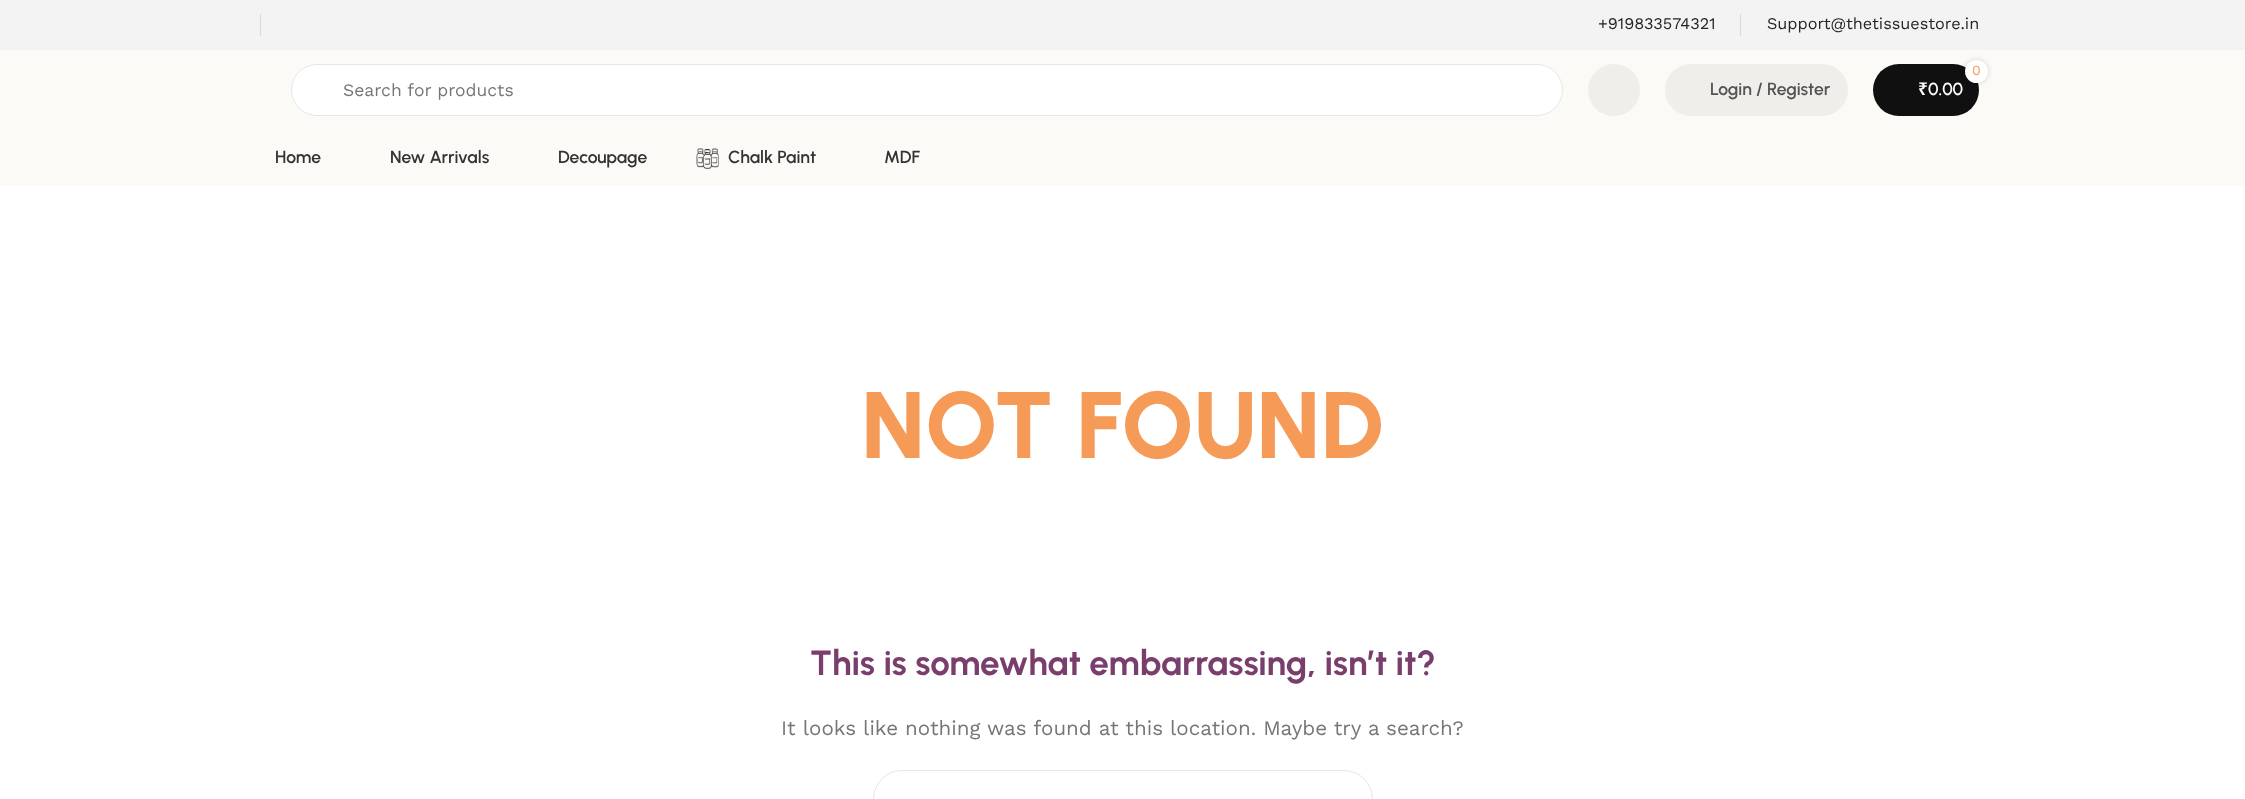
<?xml version="1.0" encoding="UTF-8"?>
<svg xmlns="http://www.w3.org/2000/svg" xmlns:xlink="http://www.w3.org/1999/xlink" width="2245" height="799">
  <rect width="100%" height="100%" fill="#ffffff" />
  <rect width="2245" height="50" fill="#f3f3f3" />
  <rect x="260" y="14" width="1" height="22" fill="#d9d9d9" />
  <rect x="1740" y="14" width="1" height="22" fill="#d9d9d9" />
  <rect y="50" width="2245" height="136" fill="#fbfaf7" />
  <rect x="291" y="64" width="1272" height="52" rx="26" fill="#ffffff" />
  <rect x="291.5" y="64.5" width="1271" height="51" rx="25.5" fill="none" stroke="#000000" stroke-opacity="0.1" />
  <circle cx="1614" cy="90" r="26" fill="#efeeeb" />
  <rect x="1665" y="64" width="183" height="52" rx="26" fill="#efeeeb" />
  <rect x="1873" y="64" width="106" height="52" rx="26" fill="#101010" />
  <rect x="1965" y="60" width="23" height="23" rx="11.5" fill="#000000" fill-opacity="0.17" filter="blur(2.5px)" />
  <circle cx="1976.5" cy="71.5" r="11.5" fill="#ffffff" />
  <image x="696" y="148" width="23" height="21" xlink:href="image1.png" />
  <rect x="873.5" y="770.5" width="499" height="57" rx="28.5" fill="none" stroke="#e6e6e6" />
  <text x="1598" y="29" style="font-family: Work Sans; font-size: 16.25px; fill: #242424">+919833574321</text>
  <text x="1767" y="29" style="font-family: Work Sans; font-size: 16.25px; fill: #242424">Support@thetissuestore.in</text>
  <text x="343" y="96" style="font-family: Work Sans; font-size: 17.5px; fill: #767676">Search for products</text>
  <text x="1710" y="95" style="font-family: Urbanist; font-size: 17.5px; font-weight: 600; fill: #535352">Login / Register</text>
  <text x="1972" y="75" style="font-family: Work Sans; font-size: 14px; fill: #f59a57">0</text>
  <text x="1918" y="95" style="font-family: Noto Sans; font-size: 17.5px; font-weight: 600; fill: #ffffff">₹</text>
  <text x="1928" y="95" style="font-family: Urbanist; font-size: 17.5px; font-weight: 600; fill: #ffffff">0.00</text>
  <text x="275" y="163" style="font-family: Urbanist; font-size: 17.5px; font-weight: 600; fill: #333333">Home</text>
  <text x="390" y="163" style="font-family: Urbanist; font-size: 17.5px; font-weight: 600; fill: #333333">New Arrivals</text>
  <text x="558" y="163" style="font-family: Urbanist; font-size: 17.5px; font-weight: 600; fill: #333333">Decoupage</text>
  <text x="728" y="163" style="font-family: Urbanist; font-size: 17.5px; font-weight: 600; fill: #333333">Chalk Paint</text>
  <text x="884" y="163" style="font-family: Urbanist; font-size: 17.5px; font-weight: 600; fill: #333333">MDF</text>
  <text x="861" y="458" style="font-family: Urbanist; font-size: 94.25px; font-weight: 800; fill: #f59a57">NOT FOUND</text>
  <text x="810" y="675" style="font-family: Urbanist; font-size: 35px; font-weight: bold; fill: #7a3e6d">This is somewhat embarrassing, isn’t it?</text>
  <text x="781" y="735" style="font-family: Work Sans; font-size: 20.6px; fill: #767676">It looks like nothing was found at this location. Maybe try a search?</text>
</svg>
